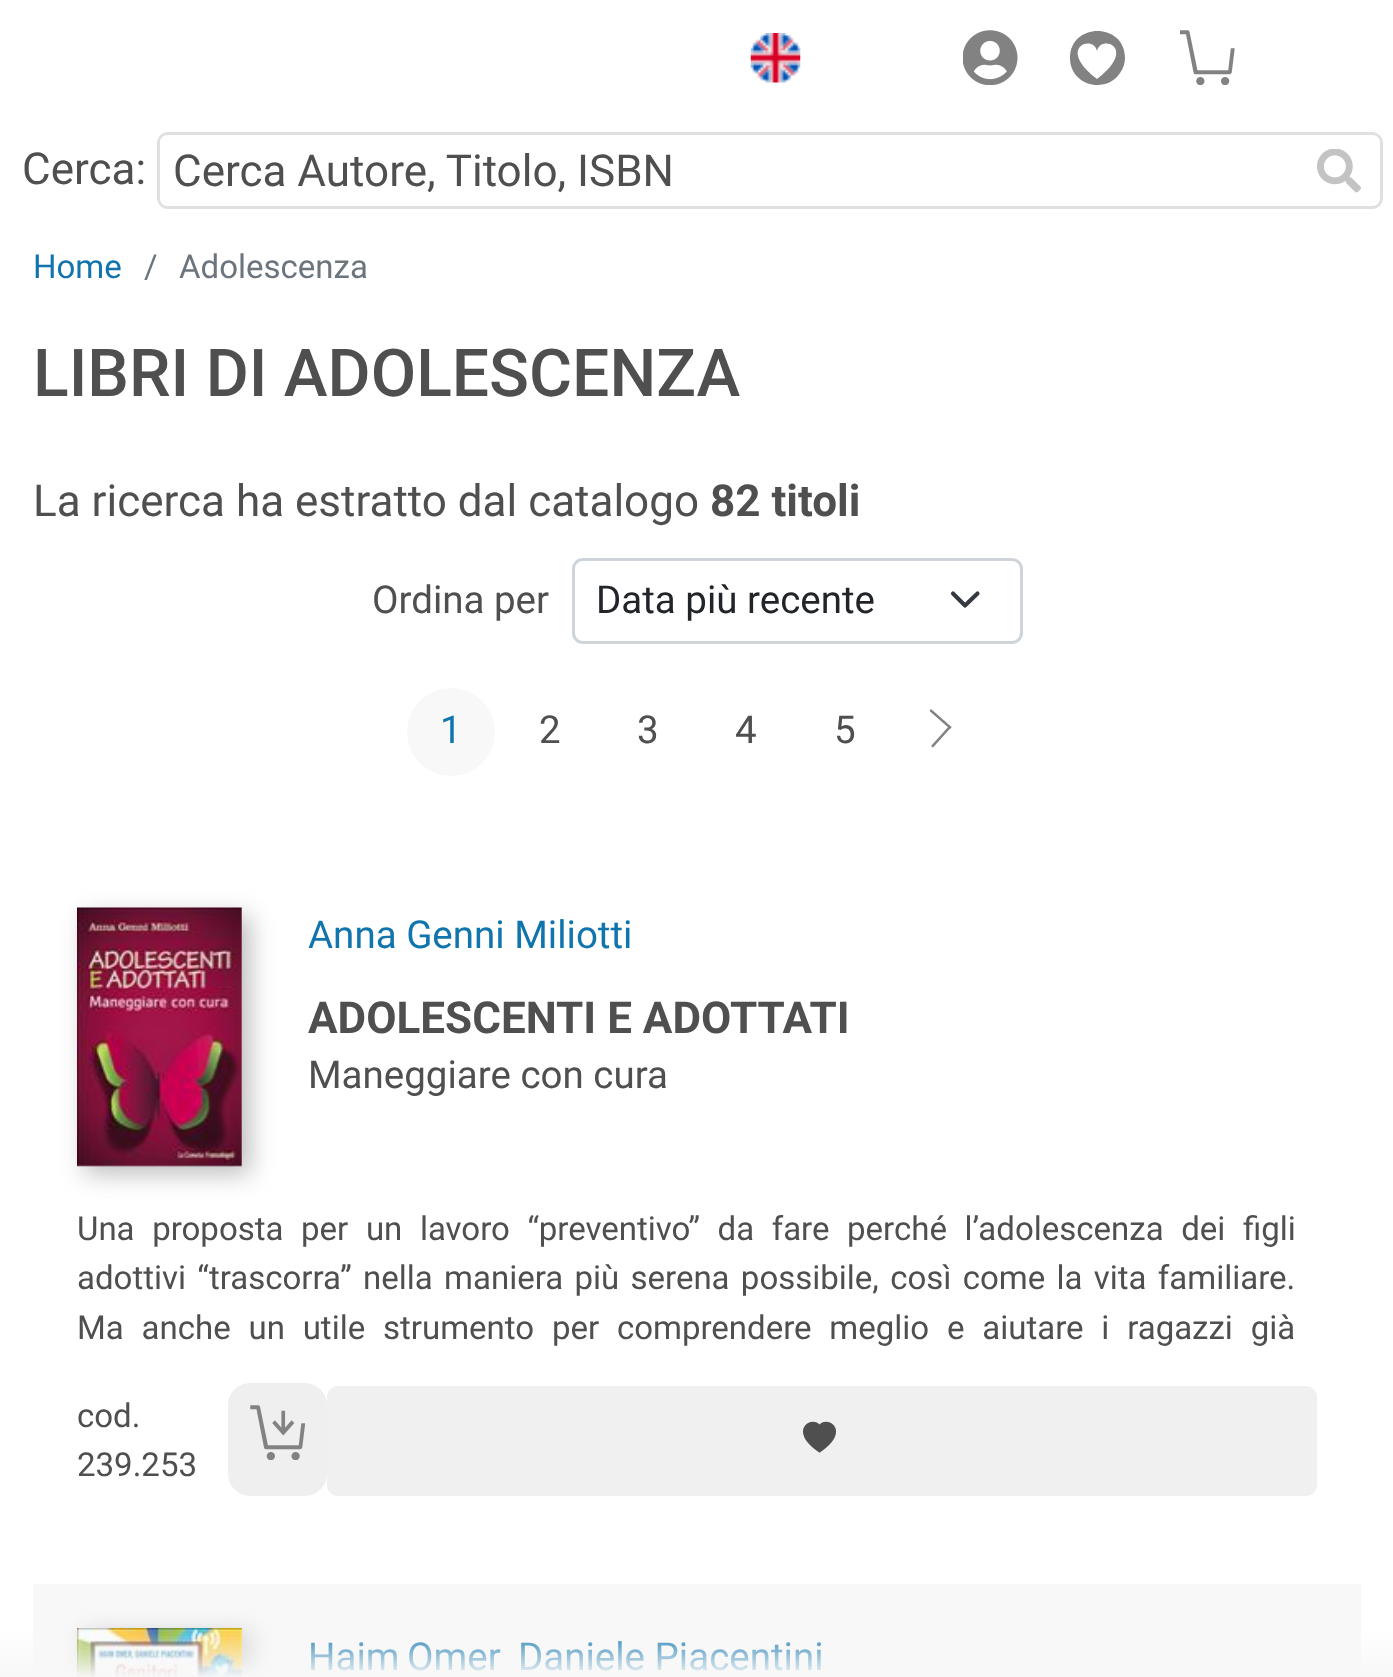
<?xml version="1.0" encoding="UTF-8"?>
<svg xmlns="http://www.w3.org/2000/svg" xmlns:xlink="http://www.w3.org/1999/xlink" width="1393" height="1677">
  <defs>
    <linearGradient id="g1" gradientUnits="userSpaceOnUse" x1="697" y1="1625" x2="697" y2="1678"><stop offset="0" stop-color="#f8f8f8" stop-opacity="0" /><stop offset="1" stop-color="#f8f8f8" /></linearGradient>
  </defs>
  <rect width="100%" height="100%" fill="#ffffff" />
  <image x="750" y="33" width="51" height="50" xlink:href="image1.png" />
  <image x="963" y="30" width="55" height="55" xlink:href="image2.png" />
  <path d="M 1097 79 c -42 -32 -3 -45 0 -28 c 3 -17 42 -4 0 28 z m 28 -21 c 0 -36 -55 -36 -55 0 c 0 27 35 37 50 15 c 3 -4 5 -10 5 -15 z" fill="#828282" />
  <image x="1180" y="30" width="55" height="55" xlink:href="image3.png" />
  <path d="M 168 132 h 1127 v 77 h -1127 c -6 0 -11 -5 -11 -11 v -55 c 0 -6 5 -11 11 -11 z m 0 3 h 1127 v 71 h -1127 c -5 0 -8 -3 -8 -8 v -55 c 0 -5 3 -8 8 -8 z" fill="#e0e0e0" fill-rule="evenodd" />
  <path d="M 1295 132 h 77 c 6 0 11 5 11 11 v 55 c 0 6 -5 11 -11 11 h -77 z m 0 3 h 77 c 5 0 8 3 8 8 v 55 c 0 5 -3 8 -8 8 h -77 z" fill="#e0e0e0" fill-rule="evenodd" />
  <image x="1317" y="149" width="44" height="44" xlink:href="image4.png" />
  <path d="M 953 593.5 l 12 12 l 12.5 -12" fill="none" stroke="#343a40" stroke-width="4.1" stroke-linecap="round" stroke-linejoin="round" />
  <rect x="573.5" y="559.5" width="448" height="83" rx="9.5" fill="none" stroke="#ced4da" stroke-width="3" />
  <circle cx="451" cy="732" r="44" fill="#f8f8f8" />
  <path d="M 950 729 l -20.5 -18 l 1.5 -2 l 20.5 18 z" fill="#828282" />
  <path d="M 933 747.5 l -2 -1.5 l 18.5 -20.5 l 2 1.5 z" fill="#828282" />
  <rect x="85" y="916" width="165" height="258" fill="#bdbdbd" filter="blur(12.5px)" />
  <image x="77" y="907" width="165" height="260" xlink:href="image5.png" />
  <rect x="228" y="1383" width="99" height="113" rx="22" fill="#efefef" />
  <image x="250" y="1405" width="55" height="55" xlink:href="image6.png" />
  <rect x="327" y="1386" width="990" height="110" rx="11" fill="#f0f0f0" />
  <image x="803" y="1421" width="33" height="32" xlink:href="image7.png" />
  <rect x="33" y="1584" width="1328" height="93" fill="#f8f8f8" />
  <rect x="85" y="1636" width="165" height="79" fill="#bdbdbd" filter="blur(12.5px)" />
  <image x="77" y="1628" width="165" height="49" xlink:href="image8.png" />
  <text x="22" y="184" style="font-family: Roboto; font-size: 44px; fill: #4f4f4f">Cerca:</text>
  <text x="173" y="186" style="font-family: Roboto; font-size: 44px; fill: #4f4f4f">Cerca Autore, Titolo, ISBN</text>
  <text x="33" y="278" style="font-family: Roboto; font-size: 33px; fill: #1074ad">Home</text>
  <text x="144" y="278" style="font-family: Roboto; font-size: 33px; fill: #6c757d">/</text>
  <text x="179" y="278" style="font-family: Roboto; font-size: 33px; fill: #6c757d">Adolescenza</text>
  <text x="33" y="396" style="font-family: Roboto; font-size: 66px; font-weight: 500; fill: #4f4f4f">LIBRI DI ADOLESCENZA</text>
  <text x="33" y="516" style="font-family: Roboto; font-size: 44px; fill: #4f4f4f">La ricerca ha estratto dal catalogo</text>
  <text x="710" y="516" style="font-family: Roboto; font-size: 44px; font-weight: bold; fill: #4f4f4f">82 titoli</text>
  <text x="372" y="613" style="font-family: Roboto; font-size: 38.5px; fill: #4f4f4f">Ordina per</text>
  <text x="596" y="613" style="font-family: Roboto; font-size: 38.5px; fill: #212529">Data più recente</text>
  <text x="440" y="743" style="font-family: Roboto; font-size: 38.5px; fill: #1074ad">1</text>
  <text x="539" y="743" style="font-family: Roboto; font-size: 38.5px; fill: #4f4f4f">2</text>
  <text x="637" y="743" style="font-family: Roboto; font-size: 38.5px; fill: #4f4f4f">3</text>
  <text x="735" y="743" style="font-family: Roboto; font-size: 38.5px; fill: #4f4f4f">4</text>
  <text x="834" y="743" style="font-family: Roboto; font-size: 38.5px; fill: #4f4f4f">5</text>
  <text x="308" y="948" style="font-family: Roboto; font-size: 38.5px; fill: #1074ad">Anna Genni Miliotti</text>
  <text x="308" y="1033" style="font-family: Roboto; font-size: 44px; font-weight: bold; fill: #4f4f4f">ADOLESCENTI E ADOTTATI</text>
  <text x="308" y="1088" style="font-family: Roboto; font-size: 38.5px; fill: #4f4f4f">Maneggiare con cura</text>
  <text x="77" y="1240" word-spacing="9.4" style="font-family: Roboto; font-size: 33px; fill: #4f4f4f">Una proposta per un lavoro “preventivo” da fare perché l’adolescenza dei figli</text>
  <text x="77" y="1289" word-spacing="3.1" style="font-family: Roboto; font-size: 33px; fill: #4f4f4f">adottivi “trascorra” nella maniera più serena possibile, così come la vita familiare.</text>
  <text x="77" y="1339" word-spacing="9.6" style="font-family: Roboto; font-size: 33px; fill: #4f4f4f">Ma anche un utile strumento per comprendere meglio e aiutare i ragazzi già</text>
  <text x="77" y="1427" style="font-family: Roboto; font-size: 33px; fill: #4f4f4f">cod.</text>
  <text x="77" y="1476" style="font-family: Roboto; font-size: 33px; fill: #4f4f4f">239.253</text>
  <text x="308" y="1670" word-spacing="-2" style="font-family: Roboto; font-size: 38.5px; fill: #1074ad">Haim Omer</text>
  <text x="518" y="1670" style="font-family: Roboto; font-size: 38.5px; fill: #1074ad">Daniele Piacentini</text>
  <rect y="1628" width="1393" height="49" fill="url(#g1)" />
</svg>
